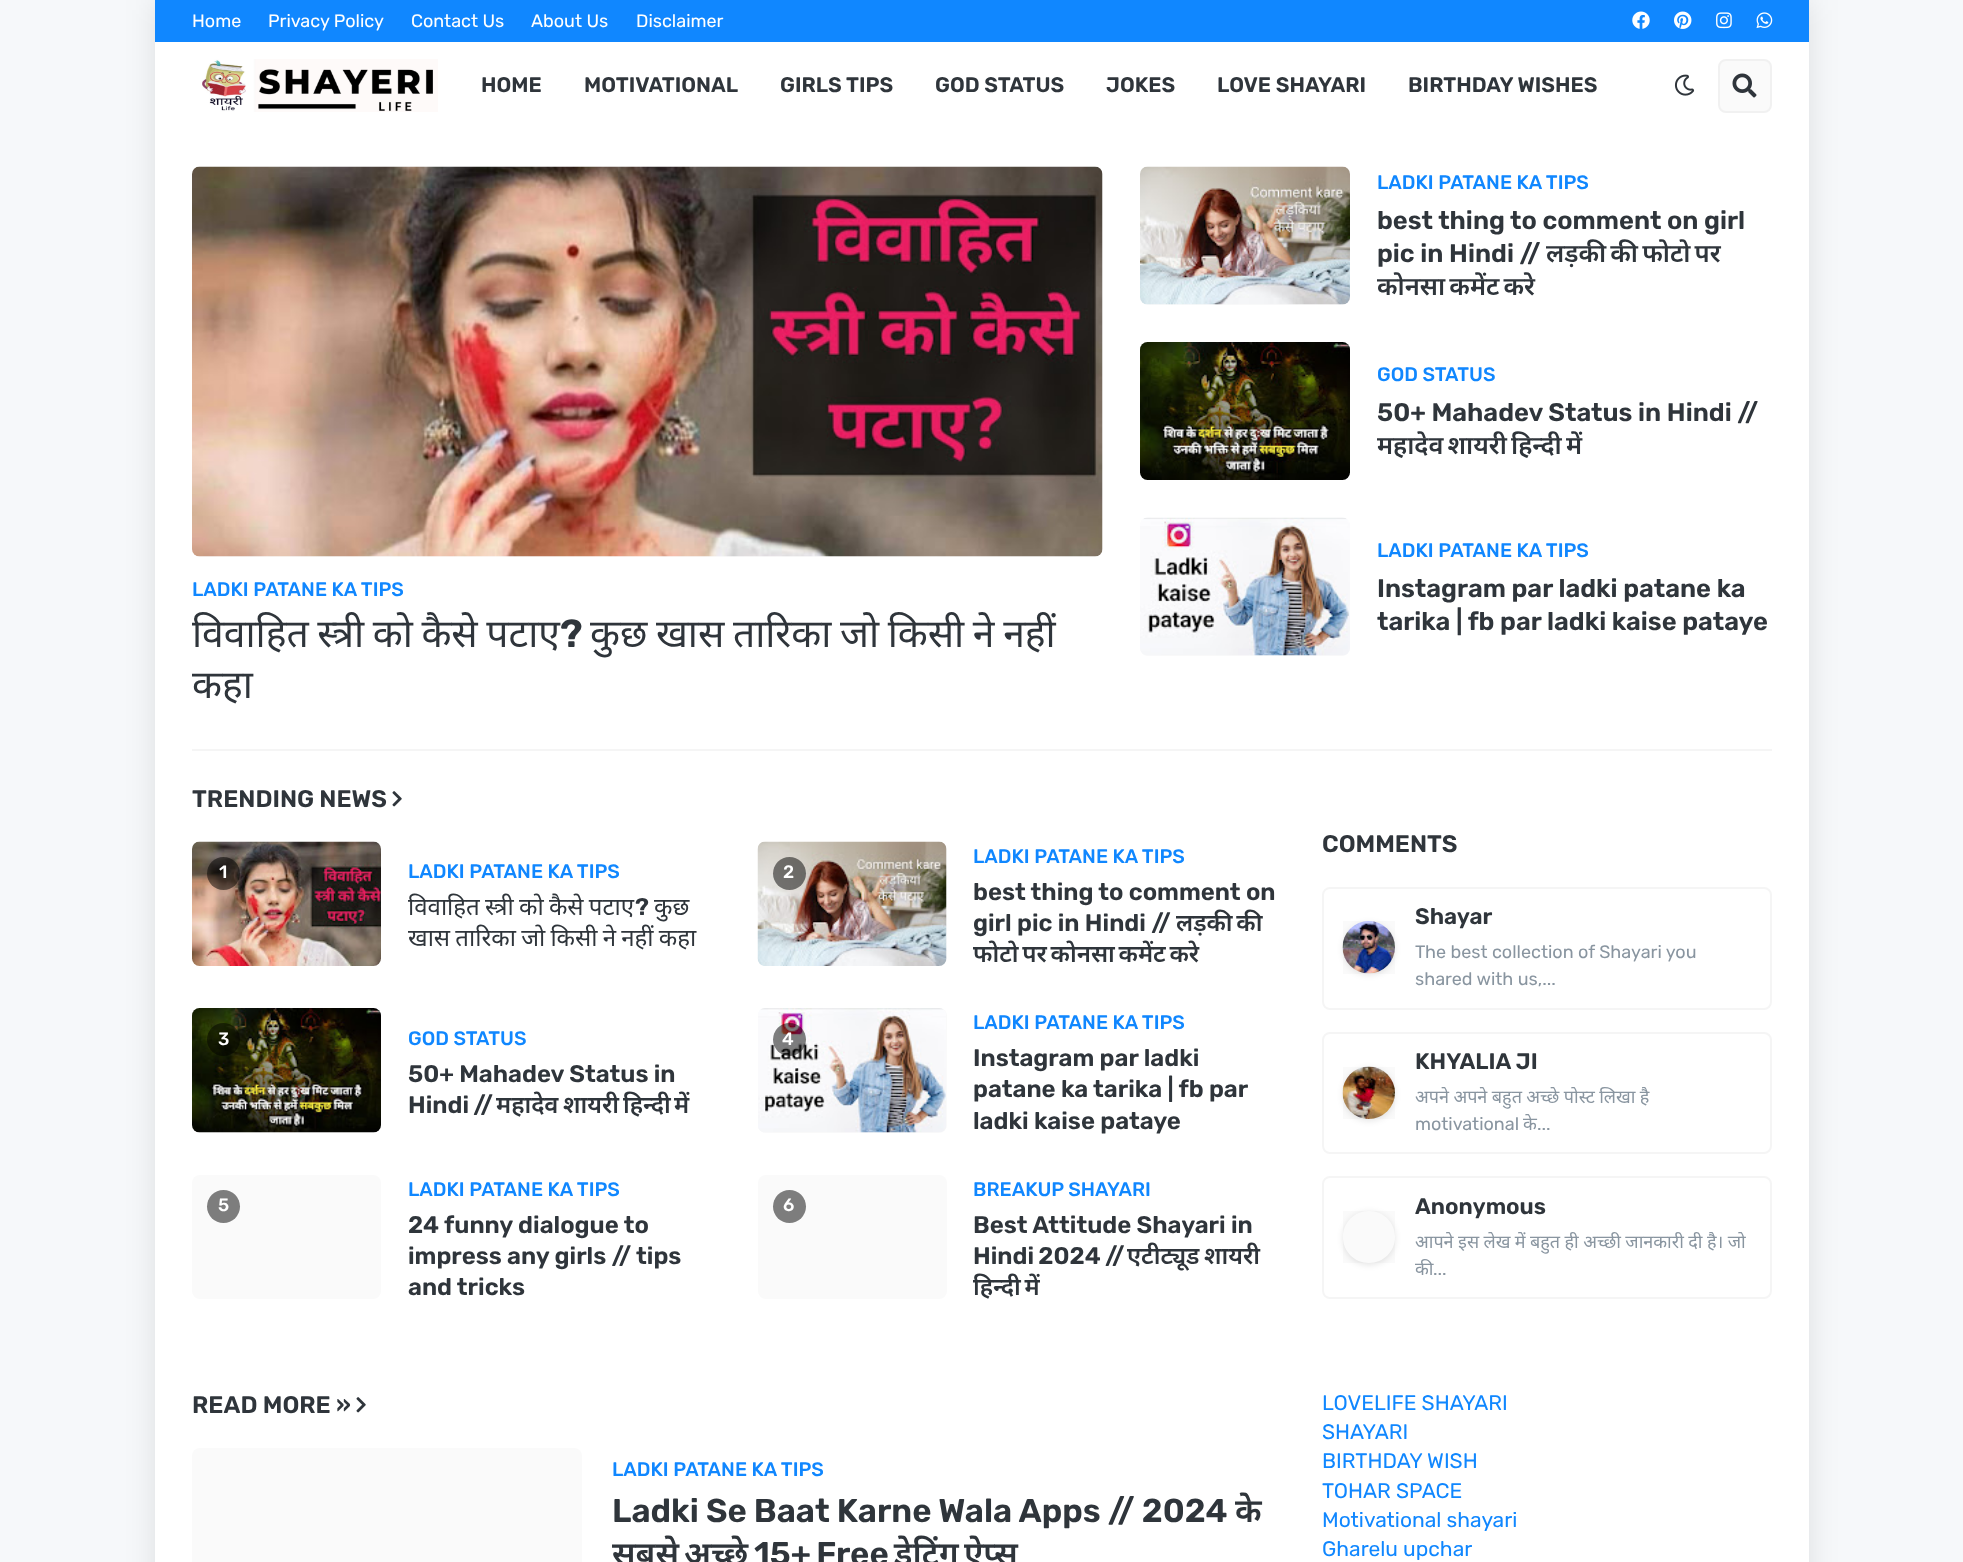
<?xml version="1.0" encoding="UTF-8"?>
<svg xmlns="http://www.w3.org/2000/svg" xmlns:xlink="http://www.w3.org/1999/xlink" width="1963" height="1562">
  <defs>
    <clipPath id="clip1"><path d="M 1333 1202 h 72 v 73 h -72 z m 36 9 c 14.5 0 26 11.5 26 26 c 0 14.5 -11.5 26 -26 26 c -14.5 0 -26 -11.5 -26 -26 c 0 -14.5 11.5 -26 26 -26 z" clip-rule="evenodd" /></clipPath>
  </defs>
  <rect width="100%" height="100%" fill="#f6f8fa" />
  <rect x="155" width="1654" height="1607" fill="#000000" fill-opacity="0.1" filter="blur(15px)" />
  <rect x="155" y="42" width="1654" height="1520" fill="#ffffff" />
  <rect x="155" width="1654" height="42" fill="#1087ff" />
  <image x="1632" y="11" width="18" height="18" xlink:href="image1.png" />
  <image x="1674" y="11" width="18" height="18" xlink:href="image2.png" />
  <image x="1716" y="12" width="16" height="17" xlink:href="image3.png" />
  <image x="1756" y="12" width="17" height="17" xlink:href="image4.png" />
  <image x="202" y="59" width="236" height="53" xlink:href="image5.png" />
  <image x="1674" y="74" width="21" height="22" xlink:href="image6.png" />
  <rect x="1719" y="60" width="52" height="52" rx="7" fill="#fafafa" stroke="#f1f1f1" stroke-width="2" />
  <image x="1732" y="73" width="25" height="25" xlink:href="image7.png" />
  <rect x="192" y="749" width="1580" height="2" fill="#f5f5f5" />
  <rect x="192" y="167" width="911" height="390" rx="8" fill="#fbfbfb" />
  <image x="192" y="166" width="911" height="391" xlink:href="image8.png" />
  <rect x="1140" y="167" width="210" height="138" rx="8" fill="#fafafa" />
  <image x="1140" y="166" width="210" height="139" xlink:href="image9.png" />
  <image x="1140" y="342" width="210" height="138" xlink:href="image10.png" />
  <rect x="1140" y="518" width="210" height="138" rx="8" fill="#fafafa" />
  <image x="1140" y="517" width="210" height="139" xlink:href="image11.png" />
  <image x="392" y="791" width="10" height="16" xlink:href="image12.png" />
  <image x="192" y="841" width="189" height="125" xlink:href="image13.png" />
  <circle cx="223.5" cy="873.5" r="16.5" fill="#000000" fill-opacity="0.5" />
  <rect x="758" y="842" width="189" height="124" rx="8" fill="#fafafa" />
  <image x="757" y="841" width="190" height="125" xlink:href="image14.png" />
  <circle cx="789.5" cy="873.5" r="16.5" fill="#000000" fill-opacity="0.5" />
  <rect x="192" y="1008" width="189" height="125" rx="8" fill="#fafafa" />
  <image x="192" y="1008" width="189" height="125" xlink:href="image15.png" />
  <circle cx="223.5" cy="1039.5" r="16.5" fill="#000000" fill-opacity="0.5" />
  <rect x="758" y="1008" width="189" height="125" rx="8" fill="#fafafa" />
  <image x="758" y="1008" width="188" height="125" xlink:href="image16.png" />
  <circle cx="789.5" cy="1039.5" r="16.5" fill="#000000" fill-opacity="0.5" />
  <rect x="192" y="1175" width="189" height="124" rx="8" fill="#fafafa" />
  <circle cx="223.5" cy="1206.5" r="16.5" fill="#7d7d7d" />
  <rect x="758" y="1175" width="189" height="124" rx="8" fill="#fafafa" />
  <circle cx="789.5" cy="1206.5" r="16.5" fill="#7d7d7d" />
  <image x="356" y="1397" width="10" height="16" xlink:href="image12.png" />
  <rect x="192" y="1448" width="390" height="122" rx="8" fill="#fafafa" />
  <rect x="1323" y="888" width="448" height="121" rx="7" fill="none" stroke="#f5f5f5" stroke-width="2" />
  <rect x="1343" y="923" width="52" height="52" rx="26" fill="#000000" fill-opacity="0.1" filter="blur(3px)" />
  <rect x="1343" y="921" width="52" height="53" fill="#9b9b9b" fill-opacity="0.05" />
  <image x="1342" y="921" width="53" height="53" xlink:href="image17.png" />
  <rect x="1323" y="1033" width="448" height="120" rx="7" fill="none" stroke="#f5f5f5" stroke-width="2" />
  <rect x="1343" y="1068" width="52" height="53" rx="26" fill="#000000" fill-opacity="0.1" filter="blur(3px)" />
  <rect x="1343" y="1067" width="52" height="52" fill="#9b9b9b" fill-opacity="0.05" />
  <image x="1342" y="1066" width="53" height="53" xlink:href="image18.png" />
  <rect x="1323" y="1177" width="448" height="121" rx="7" fill="none" stroke="#f5f5f5" stroke-width="2" />
  <g clip-path="url(#clip1)">
    <rect x="1343" y="1212" width="52" height="53" rx="26" fill="#000000" fill-opacity="0.1" filter="blur(3px)" />
  </g>
  <rect x="1343" y="1211" width="52" height="52" fill="#9b9b9b" fill-opacity="0.05" />
  <text x="192" y="27" style="font-family: Rubik; font-size: 18px; fill: #ffffff">Home</text>
  <text x="268" y="27" style="font-family: Rubik; font-size: 18px; fill: #ffffff">Privacy Policy</text>
  <text x="411" y="27" style="font-family: Rubik; font-size: 18px; fill: #ffffff">Contact Us</text>
  <text x="531" y="27" style="font-family: Rubik; font-size: 18px; fill: #ffffff">About Us</text>
  <text x="636" y="27" style="font-family: Rubik; font-size: 18px; fill: #ffffff">Disclaimer</text>
  <text x="481" y="92" style="font-family: Rubik; font-size: 21px; font-weight: 600; fill: #2f353b">HOME</text>
  <text x="584" y="92" style="font-family: Rubik; font-size: 21px; font-weight: 600; fill: #2f353b">MOTIVATIONAL</text>
  <text x="780" y="92" style="font-family: Rubik; font-size: 21px; font-weight: 600; fill: #2f353b">GIRLS TIPS</text>
  <text x="935" y="92" style="font-family: Rubik; font-size: 21px; font-weight: 600; fill: #2f353b">GOD STATUS</text>
  <text x="1106" y="92" style="font-family: Rubik; font-size: 21px; font-weight: 600; fill: #2f353b">JOKES</text>
  <text x="1217" y="92" style="font-family: Rubik; font-size: 21px; font-weight: 600; fill: #2f353b">LOVE SHAYARI</text>
  <text x="1408" y="92" style="font-family: Rubik; font-size: 21px; font-weight: 600; fill: #2f353b">BIRTHDAY WISHES</text>
  <text x="192" y="596" style="font-family: Rubik; font-size: 19.5px; font-weight: 500; fill: #1087ff">LADKI PATANE KA TIPS</text>
  <text x="192" y="647" word-spacing="-1.5" style="font-family: Noto Sans; font-size: 39px; fill: #2f353b">विवाहित स्त्री को कैसे पटाए</text>
  <text x="560" y="647" style="font-family: Rubik; font-size: 39px; font-weight: 600; fill: #2f353b">?</text>
  <text x="590" y="647" word-spacing="-1.5" style="font-family: Noto Sans; font-size: 39px; fill: #2f353b">कुछ खास तारिका जो किसी ने नहीं</text>
  <text x="192" y="698" style="font-family: Noto Sans; font-size: 39px; fill: #2f353b">कहा</text>
  <text x="1377" y="189" style="font-family: Rubik; font-size: 19.5px; font-weight: 500; fill: #1087ff">LADKI PATANE KA TIPS</text>
  <text x="1377" y="229" style="font-family: Rubik; font-size: 25.5px; font-weight: 600; fill: #2f353b">best thing to comment on girl</text>
  <text x="1377" y="262" style="font-family: Rubik; font-size: 25.5px; font-weight: 600; fill: #2f353b">pic in Hindi //</text>
  <text x="1546" y="262" word-spacing="-2.5" style="font-family: Noto Sans; font-size: 25.5px; font-weight: 600; fill: #2f353b">लड़की की फोटो पर</text>
  <text x="1377" y="295" word-spacing="-2.5" style="font-family: Noto Sans; font-size: 25.5px; font-weight: 600; fill: #2f353b">कोनसा कमेंट करे</text>
  <text x="1377" y="381" style="font-family: Rubik; font-size: 19.5px; font-weight: 500; fill: #1087ff">GOD STATUS</text>
  <text x="1377" y="421" style="font-family: Rubik; font-size: 25.5px; font-weight: 600; fill: #2f353b">50+ Mahadev Status in Hindi //</text>
  <text x="1377" y="454" word-spacing="-2.5" style="font-family: Noto Sans; font-size: 25.5px; font-weight: 600; fill: #2f353b">महादेव शायरी हिन्दी में</text>
  <text x="1377" y="557" style="font-family: Rubik; font-size: 19.5px; font-weight: 500; fill: #1087ff">LADKI PATANE KA TIPS</text>
  <text x="1377" y="597" style="font-family: Rubik; font-size: 25.5px; font-weight: 600; fill: #2f353b">Instagram par ladki patane ka</text>
  <text x="1377" y="630" style="font-family: Rubik; font-size: 25.5px; font-weight: 600; fill: #2f353b">tarika | fb par ladki kaise pataye</text>
  <text x="192" y="807" style="font-family: Rubik; font-size: 24px; font-weight: 600; fill: #2f353b">TRENDING NEWS</text>
  <text x="219" y="878" style="font-family: Rubik; font-size: 18px; font-weight: 500; fill: #ffffff">1</text>
  <text x="408" y="878" style="font-family: Rubik; font-size: 19.5px; font-weight: 500; fill: #1087ff">LADKI PATANE KA TIPS</text>
  <text x="408" y="915" word-spacing="-1" style="font-family: Noto Sans; font-size: 24px; fill: #2f353b">विवाहित स्त्री को कैसे पटाए</text>
  <text x="635" y="915" style="font-family: Rubik; font-size: 24px; font-weight: 600; fill: #2f353b">?</text>
  <text x="654" y="915" style="font-family: Noto Sans; font-size: 24px; fill: #2f353b">कुछ</text>
  <text x="408" y="946" word-spacing="-1" style="font-family: Noto Sans; font-size: 24px; fill: #2f353b">खास तारिका जो किसी ने नहीं कहा</text>
  <text x="783" y="878" style="font-family: Rubik; font-size: 18px; font-weight: 500; fill: #ffffff">2</text>
  <text x="973" y="863" style="font-family: Rubik; font-size: 19.5px; font-weight: 500; fill: #1087ff">LADKI PATANE KA TIPS</text>
  <text x="973" y="900" style="font-family: Rubik; font-size: 24px; font-weight: 600; fill: #2f353b">best thing to comment on</text>
  <text x="973" y="931" style="font-family: Rubik; font-size: 24px; font-weight: 600; fill: #2f353b">girl pic in Hindi //</text>
  <text x="1176" y="931" word-spacing="-2.5" style="font-family: Noto Sans; font-size: 24px; font-weight: 600; fill: #2f353b">लड़की की</text>
  <text x="973" y="962" word-spacing="-2.5" style="font-family: Noto Sans; font-size: 24px; font-weight: 600; fill: #2f353b">फोटो पर कोनसा कमेंट करे</text>
  <text x="218" y="1045" style="font-family: Rubik; font-size: 18px; font-weight: 500; fill: #ffffff">3</text>
  <text x="408" y="1045" style="font-family: Rubik; font-size: 19.5px; font-weight: 500; fill: #1087ff">GOD STATUS</text>
  <text x="408" y="1082" style="font-family: Rubik; font-size: 24px; font-weight: 600; fill: #2f353b">50+ Mahadev Status in</text>
  <text x="408" y="1113" word-spacing="-1" style="font-family: Rubik; font-size: 24px; font-weight: 600; fill: #2f353b">Hindi //</text>
  <text x="496" y="1113" style="font-family: Noto Sans; font-size: 24px; font-weight: 600; fill: #2f353b">महादेव</text>
  <text x="563" y="1113" style="font-family: Noto Sans; font-size: 24px; font-weight: 600; fill: #2f353b">शायरी</text>
  <text x="623" y="1113" style="font-family: Noto Sans; font-size: 24px; font-weight: 600; fill: #2f353b">हिन्दी</text>
  <text x="674" y="1113" style="font-family: Noto Sans; font-size: 24px; font-weight: 600; fill: #2f353b">में</text>
  <text x="782" y="1045" style="font-family: Rubik; font-size: 18px; font-weight: 500; fill: #ffffff">4</text>
  <text x="973" y="1029" style="font-family: Rubik; font-size: 19.5px; font-weight: 500; fill: #1087ff">LADKI PATANE KA TIPS</text>
  <text x="973" y="1066" style="font-family: Rubik; font-size: 24px; font-weight: 600; fill: #2f353b">Instagram par ladki</text>
  <text x="973" y="1097" style="font-family: Rubik; font-size: 24px; font-weight: 600; fill: #2f353b">patane ka tarika | fb par</text>
  <text x="973" y="1129" style="font-family: Rubik; font-size: 24px; font-weight: 600; fill: #2f353b">ladki kaise pataye</text>
  <text x="218" y="1211" style="font-family: Rubik; font-size: 18px; font-weight: 500; fill: #ffffff">5</text>
  <text x="408" y="1196" style="font-family: Rubik; font-size: 19.5px; font-weight: 500; fill: #1087ff">LADKI PATANE KA TIPS</text>
  <text x="408" y="1233" style="font-family: Rubik; font-size: 24px; font-weight: 600; fill: #2f353b">24 funny dialogue to</text>
  <text x="408" y="1264" style="font-family: Rubik; font-size: 24px; font-weight: 600; fill: #2f353b">impress any girls // tips</text>
  <text x="408" y="1295" style="font-family: Rubik; font-size: 24px; font-weight: 600; fill: #2f353b">and tricks</text>
  <text x="783" y="1211" style="font-family: Rubik; font-size: 18px; font-weight: 500; fill: #ffffff">6</text>
  <text x="973" y="1196" style="font-family: Rubik; font-size: 19.5px; font-weight: 500; fill: #1087ff">BREAKUP SHAYARI</text>
  <text x="973" y="1233" style="font-family: Rubik; font-size: 24px; font-weight: 600; fill: #2f353b">Best Attitude Shayari in</text>
  <text x="973" y="1264" word-spacing="-1" style="font-family: Rubik; font-size: 24px; font-weight: 600; fill: #2f353b">Hindi 2024 //</text>
  <text x="1127" y="1264" style="font-family: Noto Sans; font-size: 24px; font-weight: 600; fill: #2f353b">एटीट्यूड</text>
  <text x="1204" y="1264" style="font-family: Noto Sans; font-size: 24px; font-weight: 600; fill: #2f353b">शायरी</text>
  <text x="973" y="1295" word-spacing="-2.5" style="font-family: Noto Sans; font-size: 24px; font-weight: 600; fill: #2f353b">हिन्दी में</text>
  <text x="192" y="1413" style="font-family: Rubik; font-size: 24px; font-weight: 600; fill: #2f353b">READ MORE »</text>
  <text x="612" y="1476" style="font-family: Rubik; font-size: 19.5px; font-weight: 500; fill: #1087ff">LADKI PATANE KA TIPS</text>
  <text x="612" y="1522" word-spacing="-0.25" style="font-family: Rubik; font-size: 33px; font-weight: 600; fill: #2f353b">Ladki Se Baat Karne Wala Apps // 2024</text>
  <text x="1235" y="1522" style="font-family: Noto Sans; font-size: 33px; font-weight: 600; fill: #2f353b">के</text>
  <text x="612" y="1565" style="font-family: Noto Sans; font-size: 33px; font-weight: 600; fill: #2f353b">सबसे</text>
  <text x="684" y="1565" style="font-family: Noto Sans; font-size: 33px; font-weight: 600; fill: #2f353b">अच्छे</text>
  <text x="754" y="1565" word-spacing="-2" style="font-family: Rubik; font-size: 33px; font-weight: 600; fill: #2f353b">15+ Free</text>
  <text x="894" y="1565" style="font-family: Noto Sans; font-size: 33px; font-weight: 600; fill: #2f353b">डेटिंग</text>
  <text x="964" y="1565" style="font-family: Noto Sans; font-size: 33px; font-weight: 600; fill: #2f353b">ऐप्स</text>
  <text x="1322" y="852" style="font-family: Rubik; font-size: 24px; font-weight: 600; fill: #2f353b">COMMENTS</text>
  <text x="1415" y="924" style="font-family: Rubik; font-size: 22.5px; font-weight: 600; fill: #2f353b">Shayar</text>
  <text x="1415" y="958" style="font-family: Rubik; font-size: 18px; fill: #8995a0">The best collection of Shayari you</text>
  <text x="1415" y="985" style="font-family: Rubik; font-size: 18px; fill: #8995a0">shared with us,...</text>
  <text x="1415" y="1069" style="font-family: Rubik; font-size: 22.5px; font-weight: 600; fill: #2f353b">KHYALIA JI</text>
  <text x="1415" y="1103" word-spacing="-0.25" style="font-family: Noto Sans; font-size: 18px; fill: #8995a0">अपने अपने बहुत अच्छे पोस्ट लिखा है</text>
  <text x="1415" y="1130" style="font-family: Rubik; font-size: 18px; fill: #8995a0">motivational</text>
  <text x="1523" y="1130" style="font-family: Noto Sans; font-size: 18px; fill: #8995a0">के</text>
  <text x="1537" y="1130" style="font-family: Rubik; font-size: 18px; fill: #8995a0">...</text>
  <text x="1415" y="1214" style="font-family: Rubik; font-size: 22.5px; font-weight: 600; fill: #2f353b">Anonymous</text>
  <text x="1415" y="1248" word-spacing="-0.25" style="font-family: Noto Sans; font-size: 18px; fill: #8995a0">आपने इस लेख में बहुत ही अच्छी जानकारी दी है। जो</text>
  <text x="1415" y="1275" style="font-family: Noto Sans; font-size: 18px; fill: #8995a0">की</text>
  <text x="1433" y="1275" style="font-family: Rubik; font-size: 18px; fill: #8995a0">...</text>
  <text x="1322" y="1410" style="font-family: Rubik; font-size: 21px; fill: #1087ff">LOVELIFE SHAYARI</text>
  <text x="1322" y="1439" style="font-family: Rubik; font-size: 21px; fill: #1087ff">SHAYARI</text>
  <text x="1322" y="1468" style="font-family: Rubik; font-size: 21px; fill: #1087ff">BIRTHDAY WISH</text>
  <text x="1322" y="1498" style="font-family: Rubik; font-size: 21px; fill: #1087ff">TOHAR SPACE</text>
  <text x="1322" y="1527" style="font-family: Rubik; font-size: 21px; fill: #1087ff">Motivational shayari</text>
  <text x="1322" y="1556" style="font-family: Rubik; font-size: 21px; fill: #1087ff">Gharelu upchar</text>
</svg>
